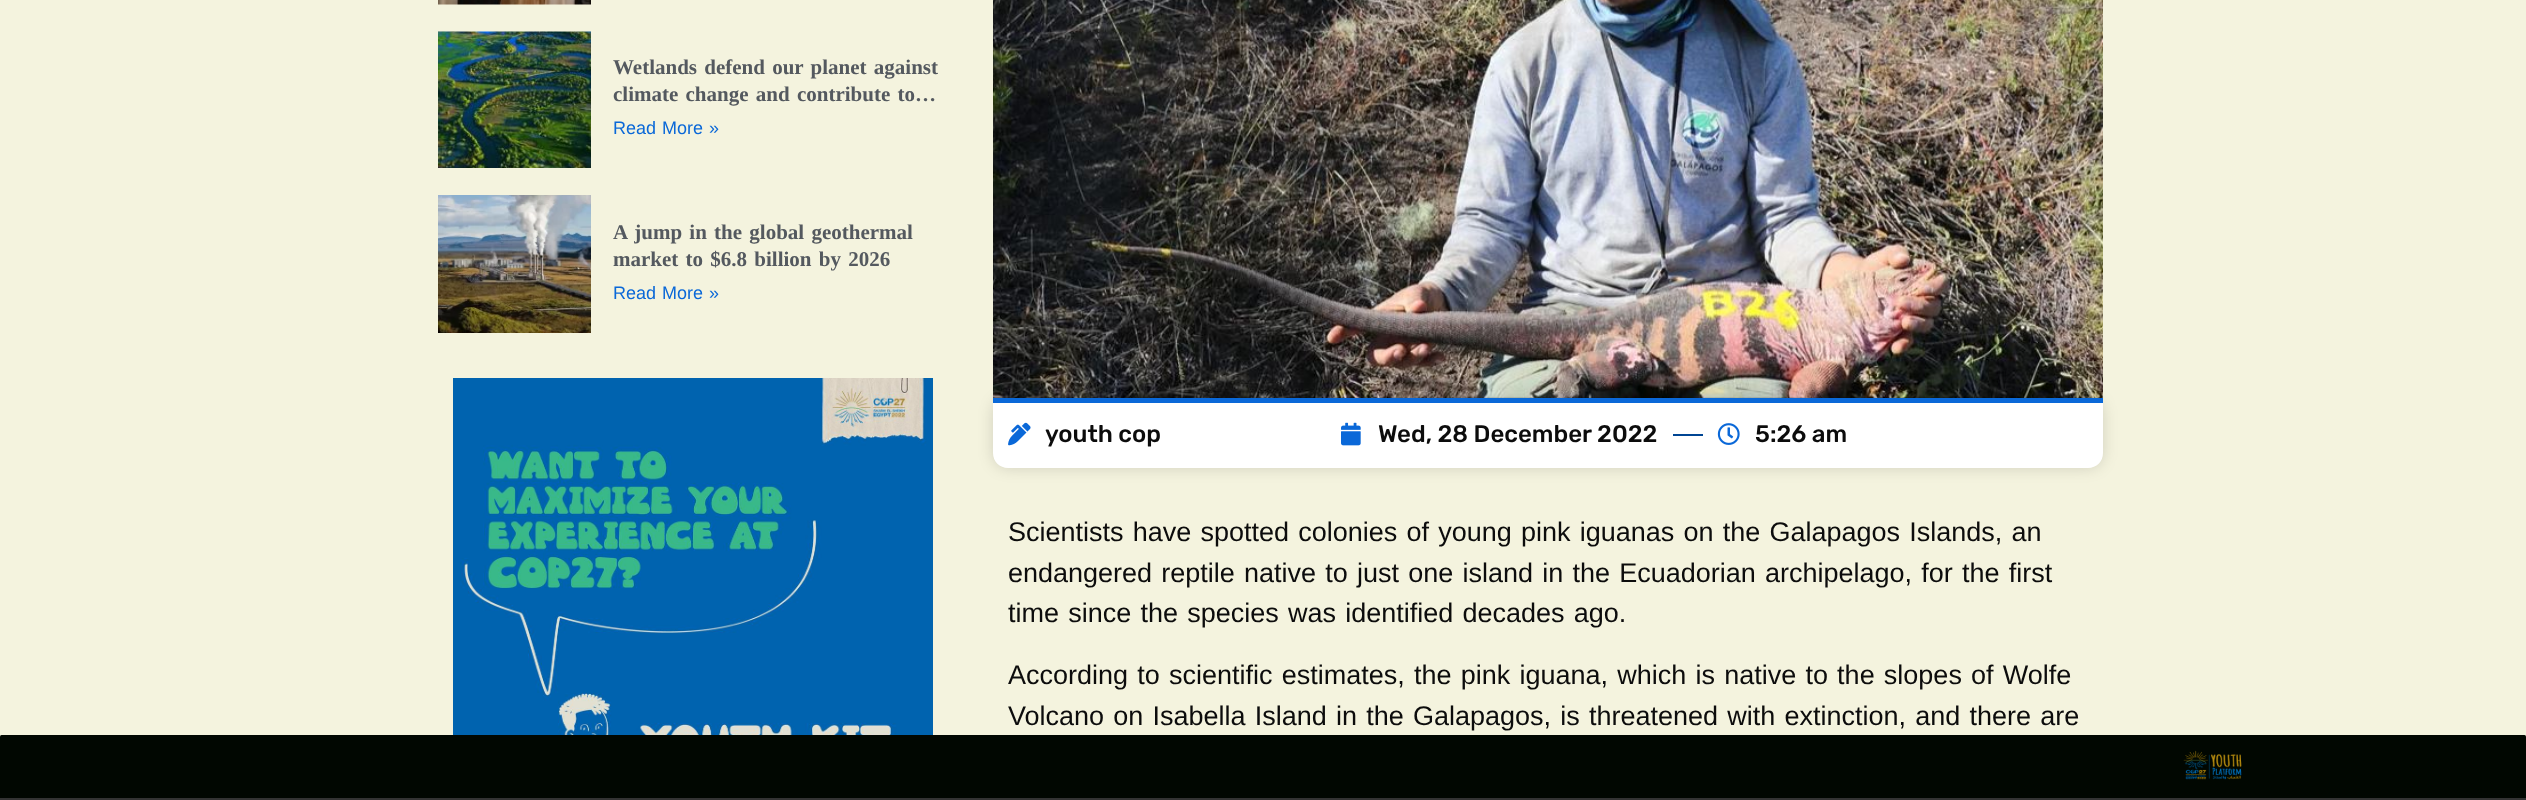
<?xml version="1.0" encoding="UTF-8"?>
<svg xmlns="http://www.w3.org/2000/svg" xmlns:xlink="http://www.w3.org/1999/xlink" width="2526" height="800">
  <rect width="100%" height="100%" fill="#f4f3de" />
  <image x="438" y="0" width="153" height="5" xlink:href="image1.png" />
  <image x="438" y="31" width="153" height="137" xlink:href="image2.png" />
  <image x="438" y="195" width="153" height="138" xlink:href="image3.png" />
  <image x="453" y="378" width="480" height="357" xlink:href="image4.png" />
  <image x="993" y="0" width="1110" height="398" xlink:href="image5.png" />
  <rect x="993" y="398" width="1110" height="70" rx="15" fill="#000000" fill-opacity="0.14" filter="blur(7.5px)" />
  <path d="M 993 402 h 1110 v 51 c 0 8.5 -6.5 15 -15 15 h -1080 c -8.5 0 -15 -6.5 -15 -15 z" fill="#ffffff" />
  <rect x="993" y="398" width="1110" height="5" fill="#0a68d8" />
  <image x="1008" y="422" width="23" height="24" xlink:href="image6.png" />
  <image x="1341" y="422" width="20" height="24" xlink:href="image7.png" />
  <rect x="1673" y="434" width="30" height="2" fill="#004593" />
  <image x="1717" y="423" width="23" height="22" xlink:href="image8.png" />
  <rect y="735" width="2526" height="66" rx="1.5" fill="#010701" />
  <rect y="798" width="2526" height="2" fill="#333333" />
  <image x="2183" y="750" width="59" height="30" xlink:href="image9.png" />
  <text x="613" y="74" word-spacing="2" style="font-family: Liberation Serif; font-size: 21px; font-weight: bold; fill: #54595f">Wetlands defend our planet against</text>
  <text x="613" y="101" word-spacing="2" style="font-family: Liberation Serif; font-size: 21px; font-weight: bold; fill: #54595f">climate change and contribute to…</text>
  <text x="613" y="134" word-spacing="1" style="font-family: Liberation Sans; font-size: 18px; fill: #0a68d8">Read More »</text>
  <text x="613" y="239" word-spacing="2" style="font-family: Liberation Serif; font-size: 21px; font-weight: bold; fill: #54595f">A jump in the global geothermal</text>
  <text x="613" y="266" word-spacing="2" style="font-family: Liberation Serif; font-size: 21px; font-weight: bold; fill: #54595f">market to $6.8 billion by 2026</text>
  <text x="613" y="299" word-spacing="1" style="font-family: Liberation Sans; font-size: 18px; fill: #0a68d8">Read More »</text>
  <text x="1045" y="442" style="font-family: Rubik; font-size: 24px; font-weight: 500; fill: #0c0c0c">youth cop</text>
  <text x="1378" y="442" style="font-family: Rubik; font-size: 24px; font-weight: 500; fill: #0c0c0c">Wed, 28 December 2022</text>
  <text x="1755" y="442" style="font-family: Rubik; font-size: 24px; font-weight: 500; fill: #0c0c0c">5:26 am</text>
  <text x="1008" y="541" word-spacing="1.7" style="font-family: Liberation Sans; font-size: 27px; fill: #0c0c0c">Scientists have spotted colonies of young pink iguanas on the Galapagos Islands, an</text>
  <text x="1008" y="582" word-spacing="1.7" style="font-family: Liberation Sans; font-size: 27px; fill: #0c0c0c">endangered reptile native to just one island in the Ecuadorian archipelago, for the first</text>
  <text x="1008" y="622" word-spacing="1.7" style="font-family: Liberation Sans; font-size: 27px; fill: #0c0c0c">time since the species was identified decades ago.</text>
  <text x="1008" y="684" word-spacing="1.7" style="font-family: Liberation Sans; font-size: 27px; fill: #0c0c0c">According to scientific estimates, the pink iguana, which is native to the slopes of Wolfe</text>
  <text x="1008" y="725" word-spacing="1.7" style="font-family: Liberation Sans; font-size: 27px; fill: #0c0c0c">Volcano on Isabella Island in the Galapagos, is threatened with extinction, and there are</text>
</svg>
